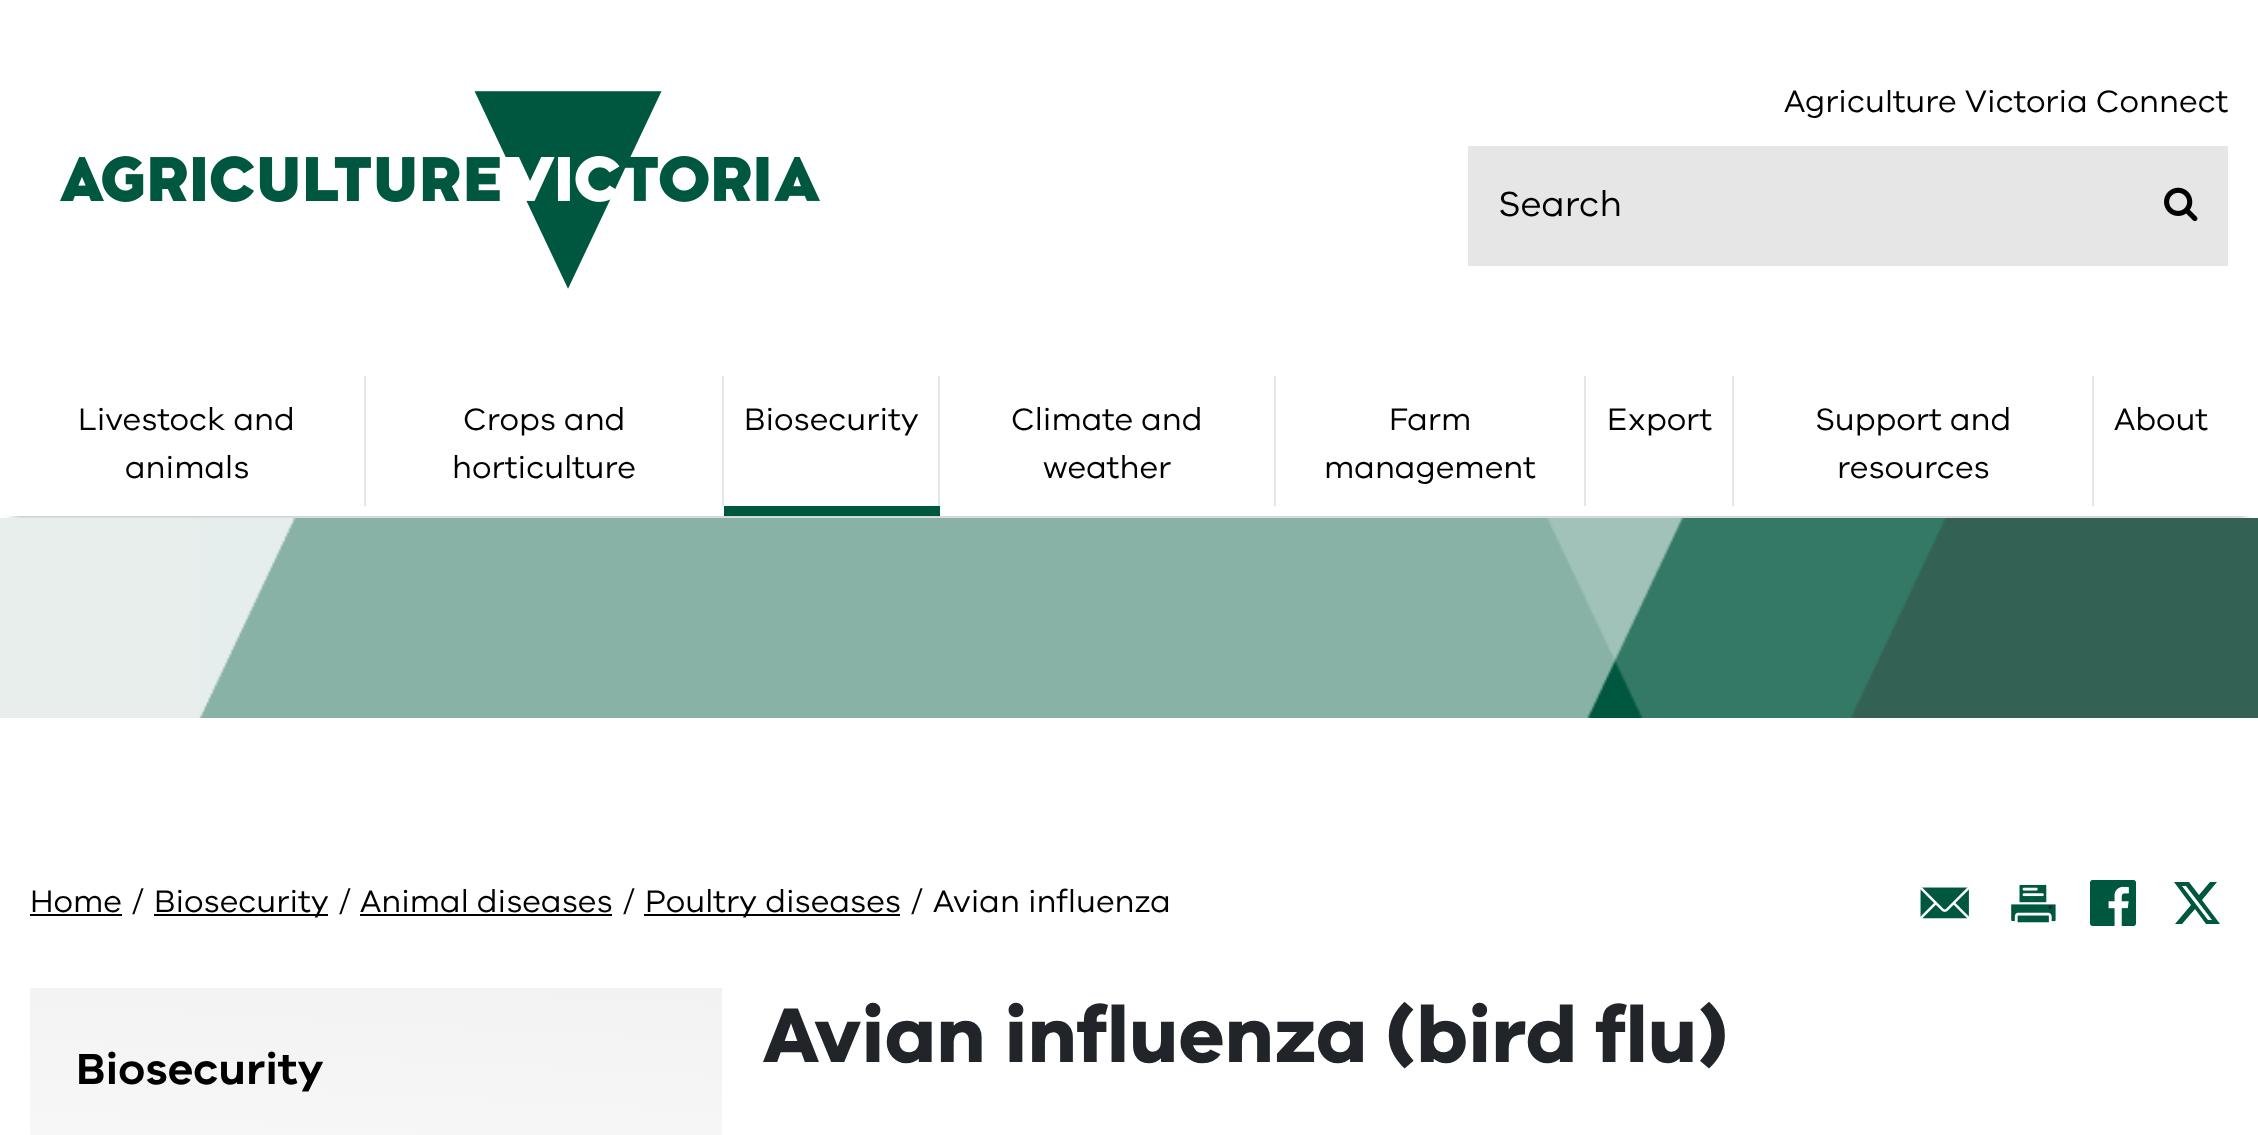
<?xml version="1.0" encoding="UTF-8"?>
<svg xmlns="http://www.w3.org/2000/svg" xmlns:xlink="http://www.w3.org/1999/xlink" width="2258" height="1135">
  <defs>
    <clipPath id="clip1"><rect x="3" y="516" width="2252" height="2" /></clipPath>
    <linearGradient id="g1" gradientUnits="userSpaceOnUse" x1="469" y1="975" x2="283" y2="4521"><stop offset="0" stop-color="#f2f2f2" /><stop offset="0.13" stop-color="#ffffff" /></linearGradient>
    <clipPath id="clip2"><rect x="1468" y="90" width="760" height="206" /></clipPath>
  </defs>
  <rect width="100%" height="100%" fill="#ffffff" />
  <image x="60" y="91" width="760" height="198" xlink:href="image1.png" />
  <rect x="1468" y="146" width="760" height="120" fill="#e6e6e6" />
  <image x="2164" y="187" width="34" height="35" xlink:href="image2.png" />
  <g clip-path="url(#clip1)">
    <rect x="12" y="402" width="2234" height="116" fill="#bbbcbc" filter="blur(5px)" />
  </g>
  <rect x="364" y="376" width="2" height="130" fill="#e6e6e6" />
  <rect x="722" y="376" width="2" height="130" fill="#e6e6e6" />
  <rect x="724" y="506" width="216" height="10" fill="#00573f" />
  <rect x="938" y="376" width="2" height="130" fill="#e6e6e6" />
  <rect x="1274" y="376" width="2" height="130" fill="#e6e6e6" />
  <rect x="1584" y="376" width="2" height="130" fill="#e6e6e6" />
  <rect x="1732" y="376" width="2" height="130" fill="#e6e6e6" />
  <rect x="2092" y="376" width="2" height="130" fill="#e6e6e6" />
  <rect y="518" width="199" height="200" fill="#e7eeec" />
  <image x="199" y="518" width="2059" height="200" xlink:href="image3.png" />
  <rect x="30" y="914" width="92" height="2" fill="#000000" />
  <rect x="154" y="914" width="174" height="2" fill="#000000" />
  <rect x="360" y="914" width="252" height="2" fill="#000000" />
  <rect x="644" y="914" width="256" height="2" fill="#000000" />
  <image x="1920" y="887" width="49" height="32" xlink:href="image4.png" />
  <image x="2011" y="884" width="45" height="39" xlink:href="image5.png" />
  <image x="2090" y="880" width="46" height="46" xlink:href="image6.png" />
  <path d="M 2210 882 h 7 l -15 18 l 18 24 h -14 l -11 -15 l -13 15 h -7 l 16 -19 l -17 -23 h 15 l 10 13 z m -2 38 h 4 l -26 -34 h -4 z" fill="#00573f" />
  <rect x="30" y="988" width="692" height="147" fill="url(#g1)" />
  <g clip-path="url(#clip2)">
    <text x="1784" y="112" style="font-family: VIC; font-size: 32px; fill: #000000">Agriculture Victoria Connect</text>
  </g>
  <text x="1498" y="216" style="font-family: VIC; font-size: 36px; fill: #000000">Search</text>
  <text x="78" y="430" style="font-family: VIC; font-size: 32px; fill: #000000">Livestock and</text>
  <text x="125" y="478" style="font-family: VIC; font-size: 32px; fill: #000000">animals</text>
  <text x="463" y="430" style="font-family: VIC; font-size: 32px; fill: #000000">Crops and</text>
  <text x="452" y="478" style="font-family: VIC; font-size: 32px; fill: #000000">horticulture</text>
  <text x="744" y="430" style="font-family: VIC; font-size: 32px; fill: #000000">Biosecurity</text>
  <text x="1011" y="430" style="font-family: VIC; font-size: 32px; fill: #000000">Climate and</text>
  <text x="1043" y="478" style="font-family: VIC; font-size: 32px; fill: #000000">weather</text>
  <text x="1389" y="430" style="font-family: VIC; font-size: 32px; fill: #000000">Farm</text>
  <text x="1324" y="478" style="font-family: VIC; font-size: 32px; fill: #000000">management</text>
  <text x="1607" y="430" style="font-family: VIC; font-size: 32px; fill: #000000">Export</text>
  <text x="1815" y="430" style="font-family: VIC; font-size: 32px; fill: #000000">Support and</text>
  <text x="1837" y="478" style="font-family: VIC; font-size: 32px; fill: #000000">resources</text>
  <text x="2114" y="430" style="font-family: VIC; font-size: 32px; fill: #000000">About</text>
  <text x="30" y="912" style="font-family: VIC; font-size: 32px; fill: #000000">Home</text>
  <text x="132" y="912" style="font-family: VIC; font-size: 32px; fill: #000000">/</text>
  <text x="154" y="912" style="font-family: VIC; font-size: 32px; fill: #000000">Biosecurity</text>
  <text x="339" y="912" style="font-family: VIC; font-size: 32px; fill: #000000">/</text>
  <text x="360" y="912" style="font-family: VIC; font-size: 32px; fill: #000000">Animal diseases</text>
  <text x="623" y="912" style="font-family: VIC; font-size: 32px; fill: #000000">/</text>
  <text x="645" y="912" style="font-family: VIC; font-size: 32px; fill: #000000">Poultry diseases</text>
  <text x="911" y="912" style="font-family: VIC; font-size: 32px; fill: #000000">/</text>
  <text x="933" y="912" style="font-family: VIC; font-size: 32px; fill: #000000">Avian influenza</text>
  <text x="76" y="1084" style="font-family: VIC; font-size: 44.75px; font-weight: 600; fill: #000000">Biosecurity</text>
  <text x="763" y="1062" style="font-family: VIC; font-size: 80px; font-weight: bold; fill: #212529">Avian influenza (bird flu)</text>
</svg>
